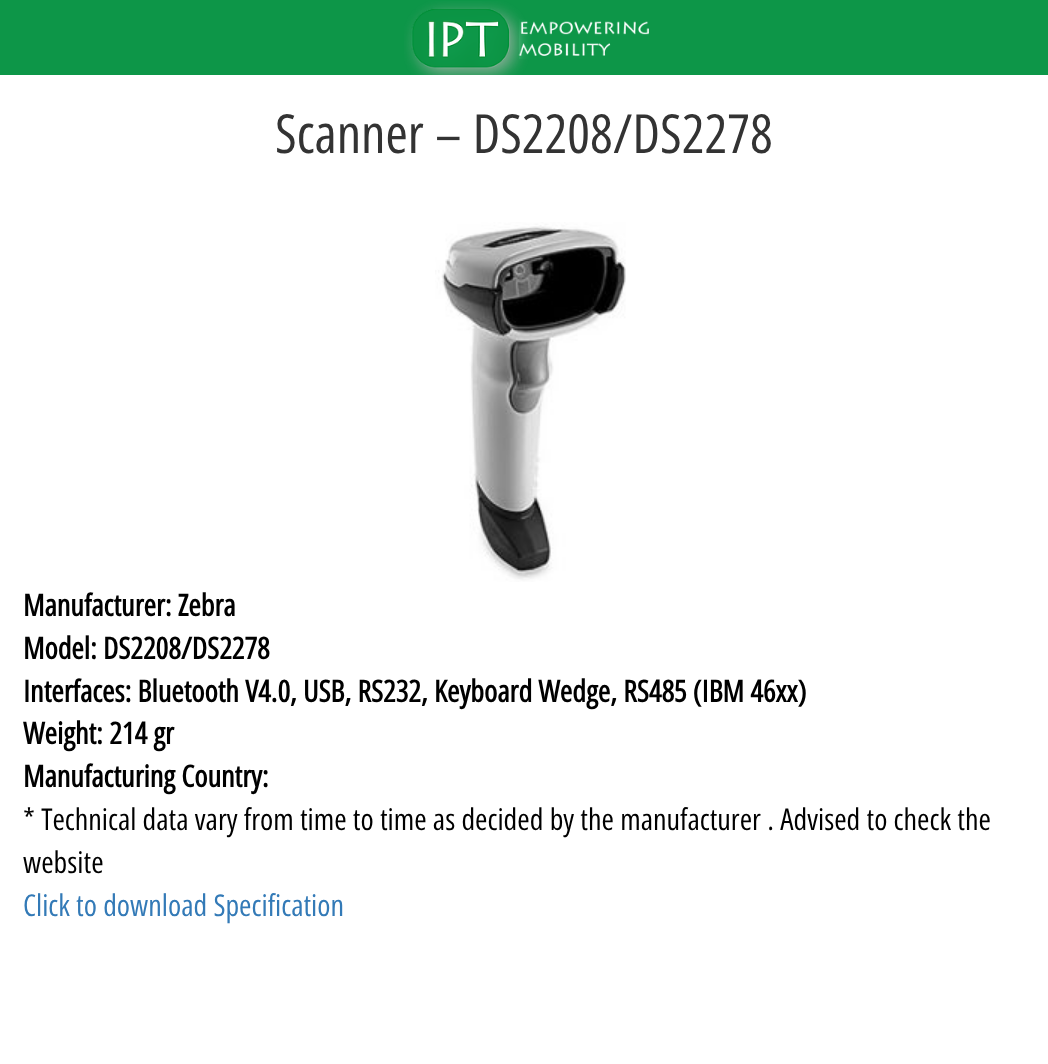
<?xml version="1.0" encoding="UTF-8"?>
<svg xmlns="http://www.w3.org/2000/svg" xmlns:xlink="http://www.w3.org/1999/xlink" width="1048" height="1064">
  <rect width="100%" height="100%" fill="#ffffff" />
  <rect width="1048" height="75" fill="#0d9648" />
  <image x="404" y="1" width="245" height="74" xlink:href="image1.png" />
  <image x="435" y="222" width="191" height="360" xlink:href="image2.png" />
  <text x="275" y="153" style="font-family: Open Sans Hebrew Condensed; font-size: 54px; fill: #333333">Scanner – DS2208/DS2278</text>
  <text x="23" y="616" style="font-family: Open Sans Hebrew Condensed; font-size: 30px; font-weight: bold; fill: #000000">Manufacturer: Zebra</text>
  <text x="23" y="659" style="font-family: Open Sans Hebrew Condensed; font-size: 30px; font-weight: bold; fill: #000000">Model: DS2208/DS2278</text>
  <text x="23" y="702" style="font-family: Open Sans Hebrew Condensed; font-size: 30px; font-weight: bold; fill: #000000">Interfaces: Bluetooth V4.0, USB, RS232, Keyboard Wedge, RS485 (IBM 46xx)</text>
  <text x="23" y="744" style="font-family: Open Sans Hebrew Condensed; font-size: 30px; font-weight: bold; fill: #000000">Weight: 214 gr</text>
  <text x="23" y="787" style="font-family: Open Sans Hebrew Condensed; font-size: 30px; font-weight: bold; fill: #000000">Manufacturing Country:</text>
  <text x="23" y="830" style="font-family: Open Sans Hebrew Condensed; font-size: 30px; fill: #000000">* Technical data vary from time to time as decided by the manufacturer . Advised to check the</text>
  <text x="23" y="873" style="font-family: Open Sans Hebrew Condensed; font-size: 30px; fill: #000000">website</text>
  <text x="23" y="916" style="font-family: Open Sans Hebrew Condensed; font-size: 30px; fill: #337ab7">Click to download Specification</text>
</svg>
